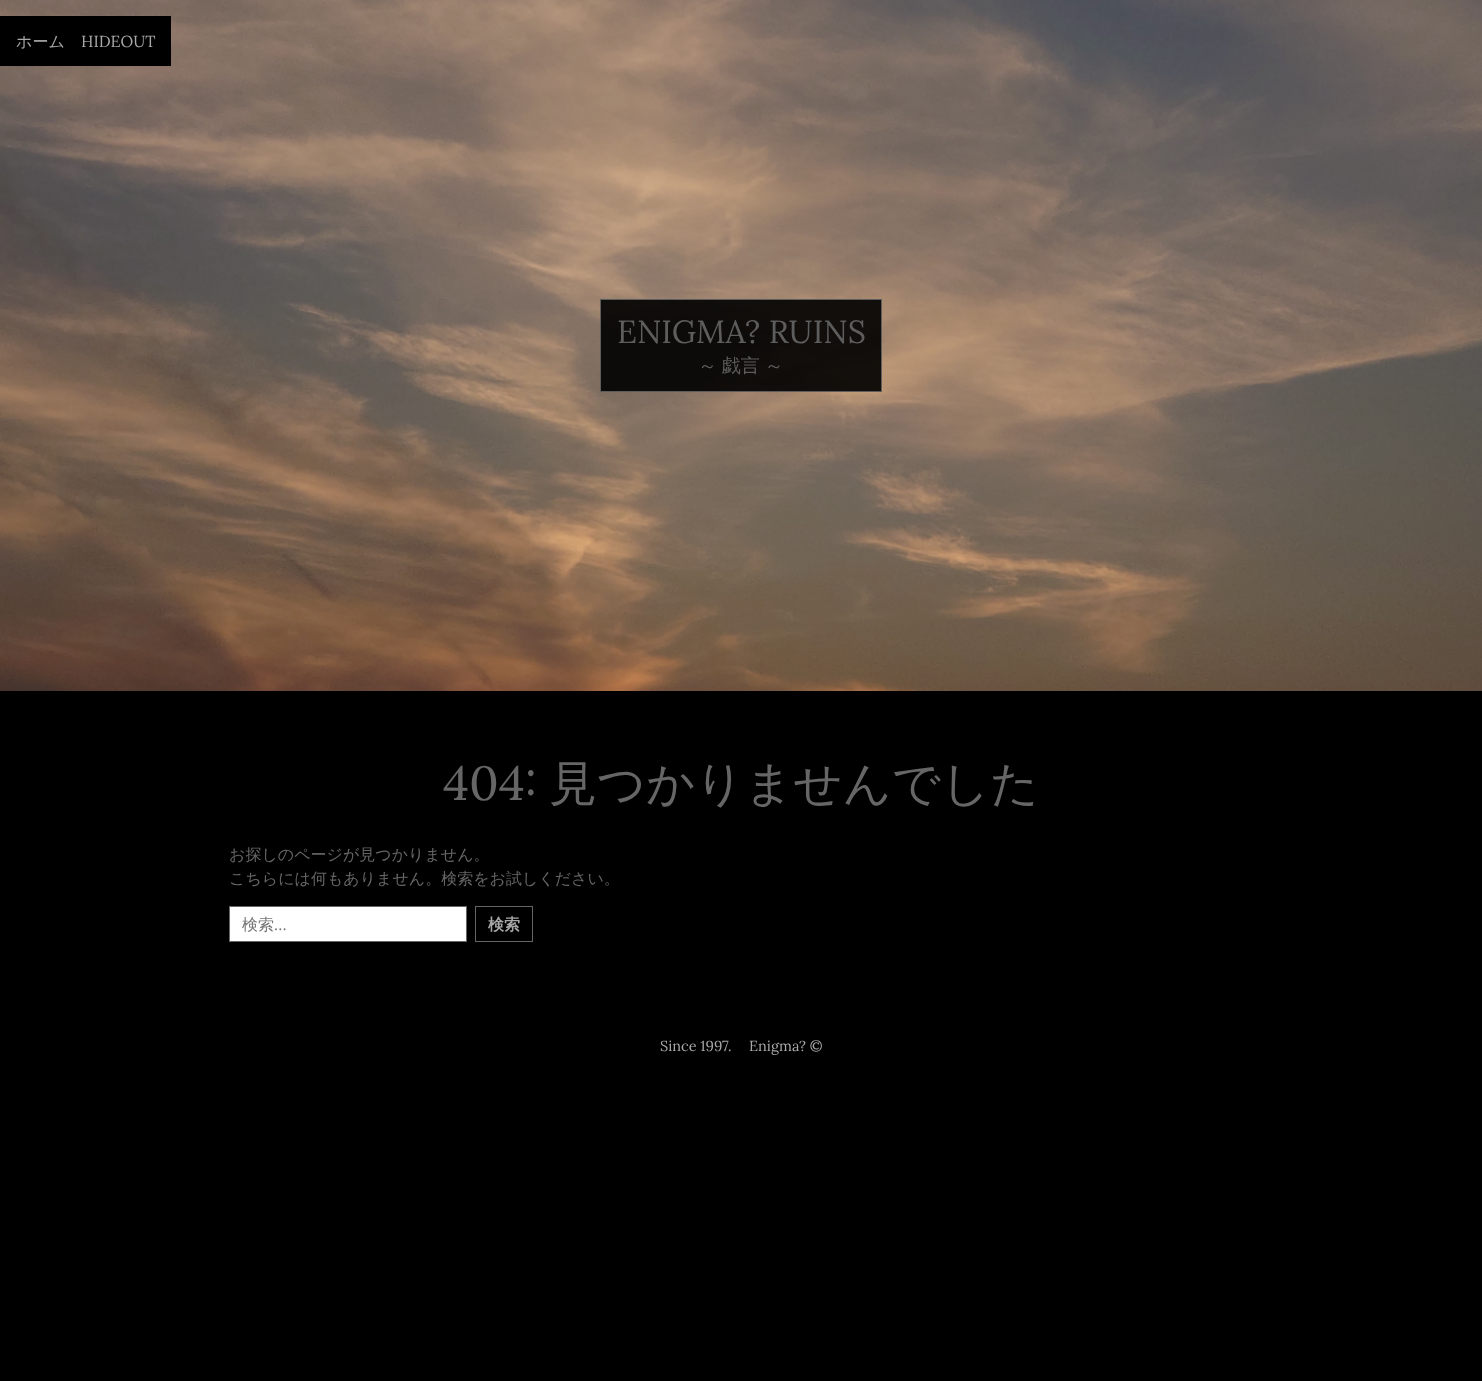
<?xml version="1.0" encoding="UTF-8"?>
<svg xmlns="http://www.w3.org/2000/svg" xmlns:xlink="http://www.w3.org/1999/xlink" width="1482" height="1381">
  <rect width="100%" height="100%" fill="#000000" />
  <image x="0" y="0" width="1482" height="691" xlink:href="image1.png" />
  <rect y="16" width="171" height="50" fill="#000000" />
  <rect x="600" y="299" width="282" height="93" fill="#000000" fill-opacity="0.9" />
  <rect x="600.5" y="299.5" width="281" height="92" fill="none" stroke="#666666" stroke-opacity="0.9" />
  <rect x="229.5" y="906.5" width="237" height="35" fill="#ffffff" stroke="#666666" />
  <rect x="475.5" y="906.5" width="57" height="35" fill="none" stroke="#666666" />
  <text x="16" y="47" style="font-family: WenQuanYi Zen Hei; font-size: 16px; font-weight: 500; fill: #a8a8a8">ホーム</text>
  <text x="81" y="47" style="font-family: Lora; font-size: 16px; fill: #a8a8a8">HIDEOUT</text>
  <text x="617" y="343" style="font-family: Lora; font-size: 32px; fill: #5d5d5d">ENIGMA? RUINS</text>
  <text x="698" y="372" word-spacing="-1" style="font-family: WenQuanYi Zen Hei; font-size: 19px; font-weight: 500; fill: #5d5d5d">～ 戯言 ～</text>
  <text x="443" y="800" style="font-family: Lora; font-size: 48px; fill: #666666">404:</text>
  <text x="549" y="800" style="font-family: WenQuanYi Zen Hei; font-size: 48px; font-weight: 500; fill: #666666">見つかりませんでした</text>
  <text x="229" y="860" style="font-family: WenQuanYi Zen Hei; font-size: 16px; font-weight: 500; fill: #666666">お探しのページが見つかりません。</text>
  <text x="229" y="884" style="font-family: WenQuanYi Zen Hei; font-size: 16px; font-weight: 500; fill: #666666">こちらには何もありません。検索をお試しください。</text>
  <text x="242" y="930" style="font-family: WenQuanYi Zen Hei; font-size: 16px; font-weight: 500; fill: #757575">検索</text>
  <text x="274" y="930" style="font-family: Lora; font-size: 16px; fill: #757575">…</text>
  <text x="488" y="930" style="font-family: WenQuanYi Zen Hei; font-size: 16px; font-weight: bold; fill: #a8a8a8">検索</text>
  <text x="660" y="1051" style="font-family: Lora; font-size: 14.5px; fill: #a8a8a8">Since 1997.</text>
  <text x="749" y="1051" style="font-family: Lora; font-size: 14.5px; fill: #a8a8a8">Enigma? ©</text>
</svg>
